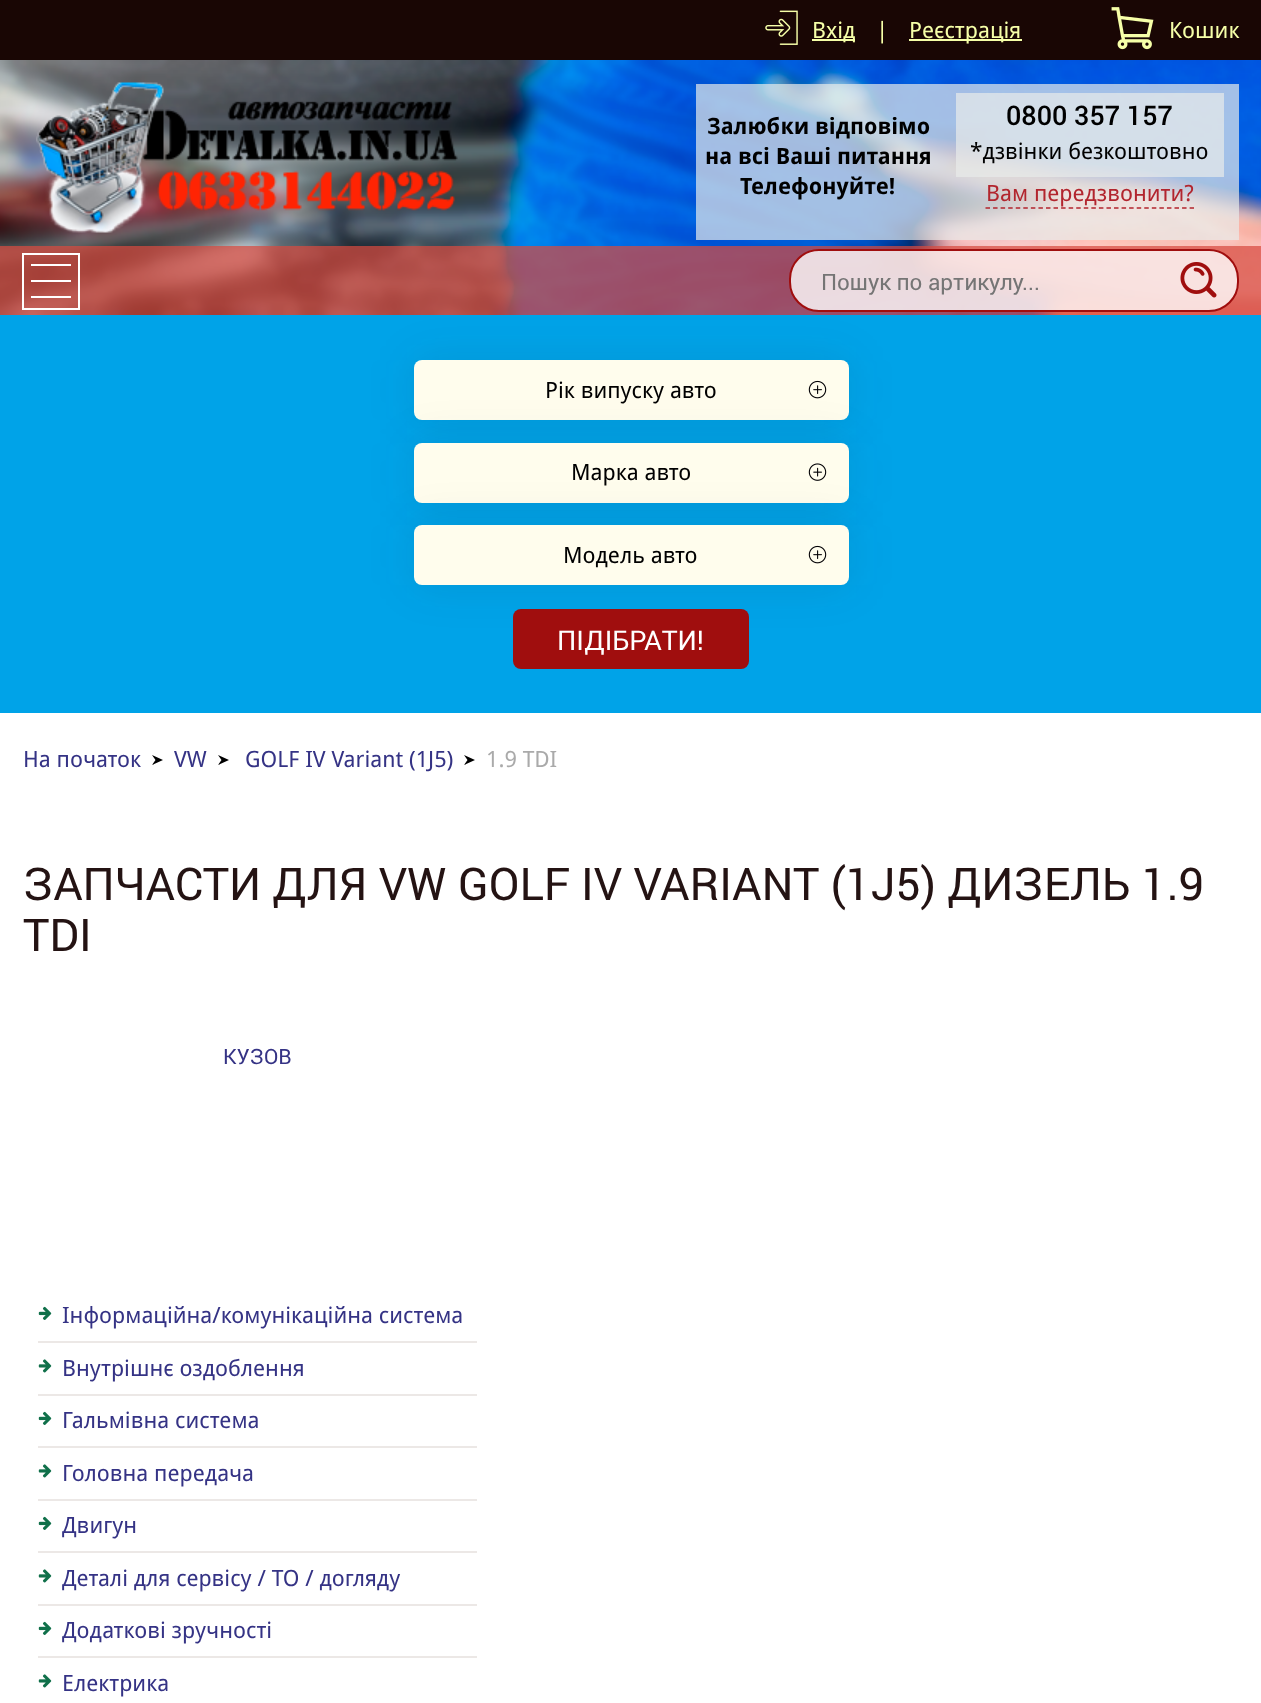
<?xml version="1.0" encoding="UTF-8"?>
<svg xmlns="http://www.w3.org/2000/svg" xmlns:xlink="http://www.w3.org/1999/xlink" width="1261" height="1703">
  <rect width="100%" height="100%" fill="#ffffff" />
  <image x="0" y="60" width="1261" height="255" xlink:href="image1.png" />
  <rect width="1261" height="60" fill="#190604" />
  <image x="765" y="10" width="33" height="35" xlink:href="image2.png" />
  <rect x="812" y="39" width="43" height="2" fill="#f6ffa8" />
  <rect x="909" y="39" width="113" height="2" fill="#f6ffa8" />
  <image x="1111" y="7" width="43" height="43" xlink:href="image3.png" />
  <image x="36" y="82" width="422" height="151" xlink:href="image4.png" />
  <rect x="696" y="84" width="543" height="156" fill="#e8ebe9" fill-opacity="0.7" />
  <rect x="956" y="93" width="268" height="84" fill="#e8ebe9" fill-opacity="0.7" />
  <path d="M 985.5 208 h 208.5" fill="none" stroke="#b2252e" stroke-width="1.5" stroke-dasharray="4.5 3.06" />
  <rect y="246" width="1261" height="69" fill="#ccccc6" fill-opacity="0.3" />
  <rect y="246" width="1261" height="69" fill="#db3125" fill-opacity="0.6" />
  <rect y="315" width="1261" height="398" fill="#00a3e8" />
  <rect x="414" y="360" width="435" height="60" rx="8" fill="#1a2633" fill-opacity="0.1" filter="blur(22.5px)" />
  <rect x="790" y="250" width="448" height="61" rx="29" fill="#ffffff" fill-opacity="0.8" stroke="#a00e0e" stroke-width="2" />
  <image x="1180" y="262" width="37" height="36" xlink:href="image5.png" />
  <path d="M 31 264 h 40 v 2 h -40 z m 0 16 h 40 v 2 h -40 z m 0 16 h 40 v 2 h -40 z m -9 -43 v 57 h 58 v -57 z m 56 55 h -54 v -53 h 54 z" fill="#ffffff" />
  <rect x="414" y="360" width="435" height="60" rx="8" fill="#fffded" />
  <rect x="414" y="443" width="435" height="60" rx="8" fill="#1a2633" fill-opacity="0.1" filter="blur(22.5px)" />
  <image x="808" y="380" width="19" height="19" xlink:href="image6.png" />
  <rect x="414" y="443" width="435" height="60" rx="8" fill="#fffded" />
  <rect x="414" y="525" width="435" height="60" rx="8" fill="#1a2633" fill-opacity="0.1" filter="blur(22.5px)" />
  <image x="808" y="463" width="19" height="18" xlink:href="image7.png" />
  <rect x="414" y="525" width="435" height="60" rx="8" fill="#fffded" />
  <image x="808" y="545" width="19" height="19" xlink:href="image8.png" />
  <rect x="513" y="609" width="236" height="60" rx="8" fill="#a00e0e" />
  <path d="M 152 765 l 3.5 -5 l -3.5 -5 l 11 5 z" fill="#000000" />
  <path d="M 218 765 l 3.5 -5 l -3.5 -5 l 11 5 z" fill="#000000" />
  <path d="M 464 765 l 3.5 -5 l -3.5 -5 l 11 5 z" fill="#000000" />
  <rect x="38" y="1341" width="439" height="2" fill="#ece8e6" />
  <image x="38" y="1306" width="14" height="14" xlink:href="image9.png" />
  <rect x="38" y="1394" width="439" height="2" fill="#ece8e6" />
  <image x="38" y="1359" width="14" height="14" xlink:href="image10.png" />
  <rect x="38" y="1446" width="439" height="2" fill="#ece8e6" />
  <image x="38" y="1411" width="14" height="14" xlink:href="image9.png" />
  <rect x="38" y="1499" width="439" height="2" fill="#ece8e6" />
  <image x="38" y="1464" width="14" height="14" xlink:href="image10.png" />
  <rect x="38" y="1551" width="439" height="2" fill="#ece8e6" />
  <image x="38" y="1516" width="14" height="14" xlink:href="image9.png" />
  <rect x="38" y="1604" width="439" height="2" fill="#ece8e6" />
  <image x="38" y="1569" width="14" height="14" xlink:href="image10.png" />
  <rect x="38" y="1656" width="439" height="2" fill="#ece8e6" />
  <image x="38" y="1621" width="14" height="14" xlink:href="image9.png" />
  <image x="38" y="1674" width="14" height="14" xlink:href="image10.png" />
  <text x="812" y="38" style="font-family: Droid Sans; font-size: 22.5px; fill: #f6ffa8">Вхід</text>
  <text x="876" y="38" style="font-family: Droid Sans; font-size: 22.5px; fill: #f6ffa8">|</text>
  <text x="909" y="38" style="font-family: Droid Sans; font-size: 22.5px; fill: #f6ffa8">Реєстрація</text>
  <text x="1169" y="38" style="font-family: Droid Sans; font-size: 22.5px; fill: #f6ffa8">Кошик</text>
  <text x="707" y="134" style="font-family: Droid Sans; font-size: 22.5px; font-weight: bold; fill: #000000">Залюбки відповімо</text>
  <text x="705" y="164" style="font-family: Droid Sans; font-size: 22.5px; font-weight: bold; fill: #000000">на всі Ваші питання</text>
  <text x="740" y="194" style="font-family: Droid Sans; font-size: 22.5px; font-weight: bold; fill: #000000">Телефонуйте!</text>
  <text x="1006" y="125" style="font-family: Roboto; font-size: 27px; font-weight: 500; fill: #000000">0800 357 157</text>
  <text x="970" y="159" style="font-family: Droid Sans; font-size: 22.5px; fill: #000000">*дзвінки безкоштовно</text>
  <text x="986" y="201" style="font-family: Droid Sans; font-size: 22.5px; fill: #b2252e">Вам передзвонити?</text>
  <text x="821" y="290" style="font-family: Roboto; font-size: 22.5px; fill: #757575">Пошук по артикулу...</text>
  <text x="545" y="398" style="font-family: Droid Sans; font-size: 22.5px; fill: #000000">Рік випуску авто</text>
  <text x="571" y="480" style="font-family: Droid Sans; font-size: 22.5px; fill: #000000">Марка авто</text>
  <text x="563" y="563" style="font-family: Droid Sans; font-size: 22.5px; fill: #000000">Модель авто</text>
  <text x="557" y="650" style="font-family: Roboto; font-size: 27px; fill: #ffffff">ПІДІБРАТИ!</text>
  <text x="23" y="767" style="font-family: Droid Sans; font-size: 22.5px; fill: #353385">На початок</text>
  <text x="174" y="767" style="font-family: Droid Sans; font-size: 22.5px; fill: #353385">VW</text>
  <text x="245" y="767" style="font-family: Droid Sans; font-size: 22.5px; fill: #353385">GOLF IV Variant (1J5)</text>
  <text x="486" y="767" style="font-family: Droid Sans; font-size: 22.5px; fill: #aaaaaa">1.9 TDI</text>
  <text x="23" y="900" style="font-family: Roboto; font-size: 45px; fill: #241313">ЗАПЧАСТИ ДЛЯ VW GOLF IV VARIANT (1J5) ДИЗЕЛЬ 1.9</text>
  <text x="23" y="951" style="font-family: Roboto; font-size: 45px; fill: #241313">TDI</text>
  <text x="223" y="1064" style="font-family: Roboto; font-size: 21px; fill: #353385">КУЗОВ</text>
  <text x="62" y="1323" style="font-family: Droid Sans; font-size: 22.5px; fill: #353385">Інформаційна/комунікаційна система</text>
  <text x="62" y="1376" style="font-family: Droid Sans; font-size: 22.5px; fill: #353385">Внутрішнє оздоблення</text>
  <text x="62" y="1428" style="font-family: Droid Sans; font-size: 22.5px; fill: #353385">Гальмівна система</text>
  <text x="62" y="1481" style="font-family: Droid Sans; font-size: 22.5px; fill: #353385">Головна передача</text>
  <text x="62" y="1533" style="font-family: Droid Sans; font-size: 22.5px; fill: #353385">Двигун</text>
  <text x="62" y="1586" style="font-family: Droid Sans; font-size: 22.5px; fill: #353385">Деталі для сервісу / ТО / догляду</text>
  <text x="62" y="1638" style="font-family: Droid Sans; font-size: 22.5px; fill: #353385">Додаткові зручності</text>
  <text x="62" y="1691" style="font-family: Droid Sans; font-size: 22.5px; fill: #353385">Електрика</text>
</svg>
